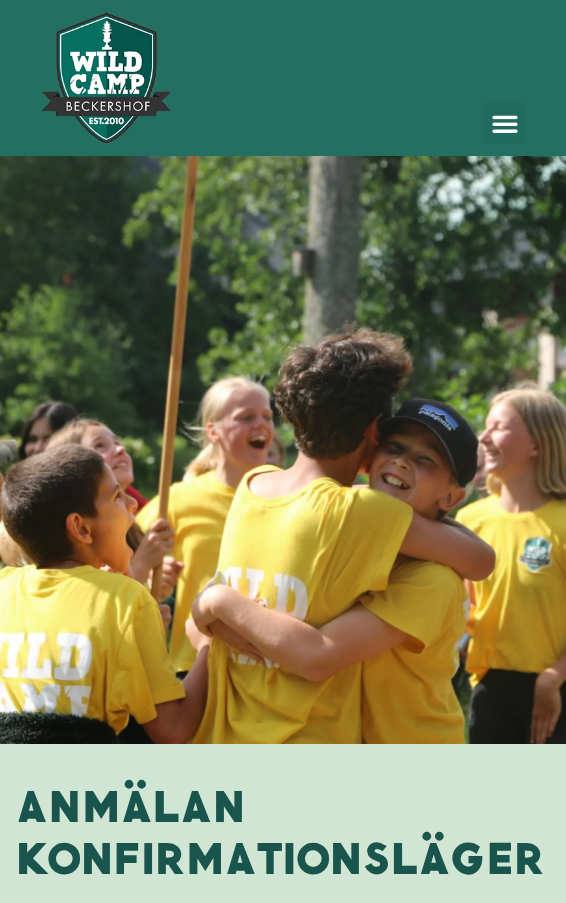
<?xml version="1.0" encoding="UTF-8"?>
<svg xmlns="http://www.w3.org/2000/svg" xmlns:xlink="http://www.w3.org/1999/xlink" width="566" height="903">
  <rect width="100%" height="100%" fill="#d0e5d4" />
  <rect width="566" height="156" fill="#237062" />
  <image x="41" y="12" width="131" height="132" xlink:href="image1.png" />
  <rect x="484" y="103" width="41" height="41" rx="4" fill="#216a5d" />
  <image x="492" y="115" width="26" height="18" xlink:href="image2.png" />
  <image x="0" y="156" width="566" height="588" xlink:href="image3.png" />
  <text x="13" y="822" style="font-family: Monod; font-size: 43.75px; font-weight: bold; letter-spacing: -6.25px; fill: #19554c">ANMÄLAN</text>
  <text x="13" y="874" style="font-family: Monod; font-size: 43.75px; font-weight: bold; letter-spacing: -6.25px; fill: #19554c">KONFIRMATIONSLÄGER</text>
</svg>
